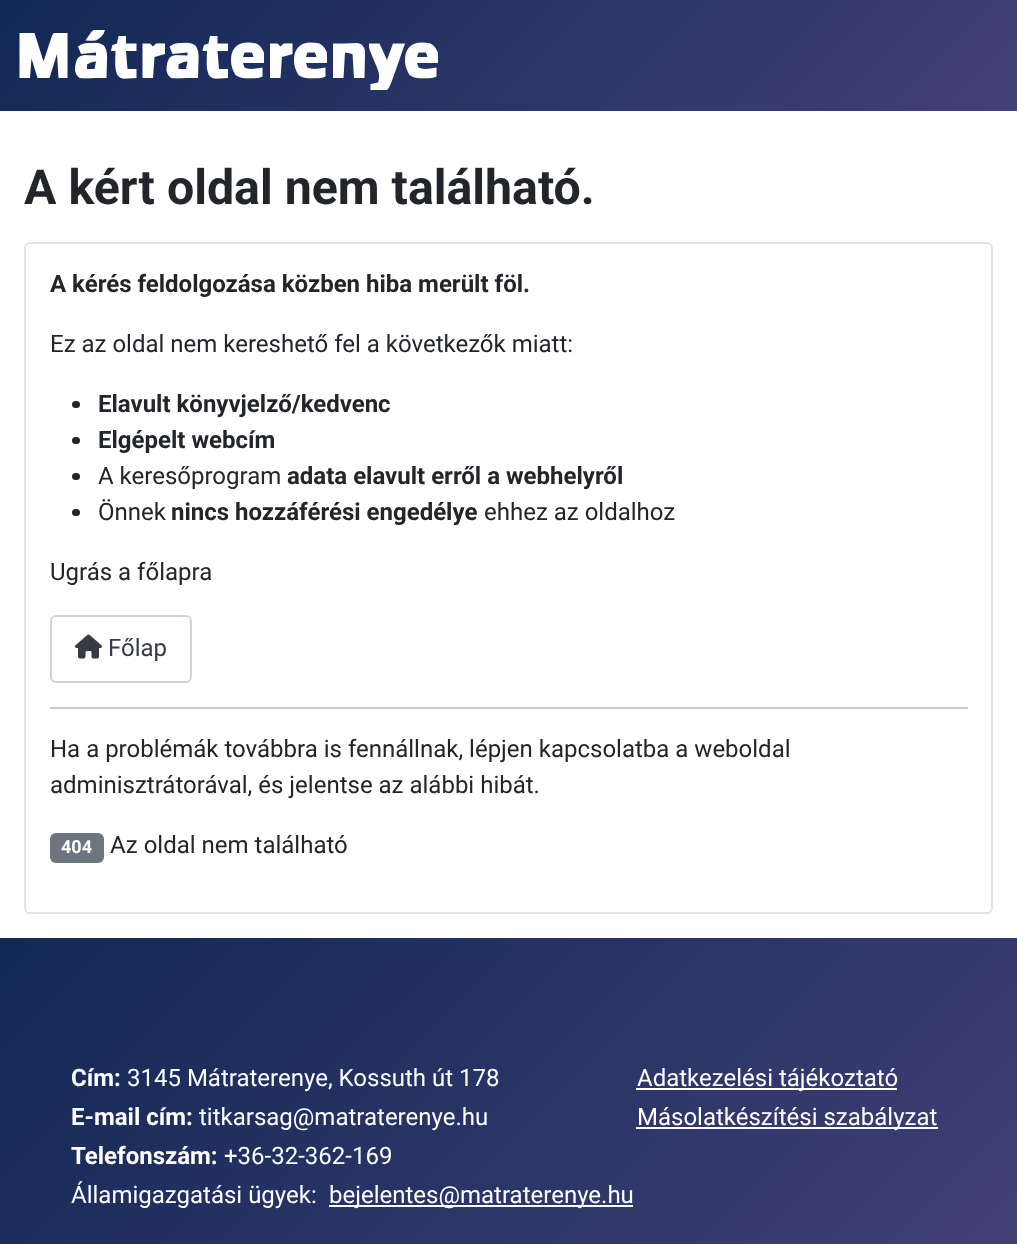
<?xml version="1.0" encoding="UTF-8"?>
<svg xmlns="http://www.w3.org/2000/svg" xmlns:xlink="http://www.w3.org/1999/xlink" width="1017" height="1244">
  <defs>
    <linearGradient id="g1" gradientUnits="userSpaceOnUse" x1="227" y1="-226" x2="791" y2="337"><stop offset="0" stop-color="#112855" /><stop offset="1" stop-color="#424077" /></linearGradient>
    <linearGradient id="g2" gradientUnits="userSpaceOnUse" x1="170" y1="768" x2="847" y2="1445"><stop offset="0" stop-color="#112855" /><stop offset="1" stop-color="#424077" /></linearGradient>
  </defs>
  <rect width="100%" height="100%" fill="#ffffff" />
  <rect width="1017" height="111" fill="url(#g1)" />
  <image x="19" y="30" width="419" height="60" xlink:href="image1.png" />
  <rect x="25" y="243" width="967" height="670" rx="5" fill="none" stroke="#dfe3e7" stroke-width="2" />
  <rect x="72" y="401" width="8" height="7" rx="3.5" fill="#22262a" />
  <rect x="72" y="437" width="8" height="7" rx="3.5" fill="#22262a" />
  <rect x="72" y="473" width="8" height="7" rx="3.5" fill="#22262a" />
  <rect x="72" y="509" width="8" height="7" rx="3.5" fill="#22262a" />
  <rect x="51" y="616" width="140" height="66" rx="5" fill="none" stroke="#ced4da" stroke-width="2" />
  <image x="75" y="634" width="27" height="25" xlink:href="image2.png" />
  <rect x="50" y="707" width="918" height="2" fill="#c8c9ca" />
  <rect x="50" y="833" width="54" height="30" rx="6" fill="#6d757e" />
  <rect y="938" width="1017" height="306" fill="url(#g2)" />
  <rect x="636" y="1088" width="261" height="2" fill="#ffffff" />
  <rect x="636" y="1127" width="302" height="2" fill="#ffffff" />
  <rect x="329" y="1205" width="304" height="2" fill="#ffffff" />
  <text x="24" y="204" style="font-family: Roboto; font-size: 48.25px; font-weight: bold; fill: #22262a">A kért oldal nem található.</text>
  <text x="50" y="292" style="font-family: Roboto; font-size: 24px; font-weight: bold; fill: #22262a">A kérés feldolgozása közben hiba merült föl.</text>
  <text x="50" y="352" style="font-family: Roboto; font-size: 24px; fill: #22262a">Ez az oldal nem kereshető fel a következők miatt:</text>
  <text x="98" y="412" style="font-family: Roboto; font-size: 24px; font-weight: bold; fill: #22262a">Elavult könyvjelző/kedvenc</text>
  <text x="98" y="448" style="font-family: Roboto; font-size: 24px; font-weight: bold; fill: #22262a">Elgépelt webcím</text>
  <text x="98" y="484" style="font-family: Roboto; font-size: 24px; fill: #22262a">A keresőprogram</text>
  <text x="287" y="484" style="font-family: Roboto; font-size: 24px; font-weight: bold; fill: #22262a">adata elavult erről a webhelyről</text>
  <text x="98" y="520" style="font-family: Roboto; font-size: 24px; fill: #22262a">Önnek</text>
  <text x="171" y="520" style="font-family: Roboto; font-size: 24px; font-weight: bold; fill: #22262a">nincs hozzáférési engedélye</text>
  <text x="484" y="520" style="font-family: Roboto; font-size: 24px; fill: #22262a">ehhez az oldalhoz</text>
  <text x="50" y="580" style="font-family: Roboto; font-size: 24px; fill: #22262a">Ugrás a főlapra</text>
  <text x="108" y="656" style="font-family: Roboto; font-size: 24px; fill: #353b41">Főlap</text>
  <text x="50" y="757" style="font-family: Roboto; font-size: 24px; fill: #22262a">Ha a problémák továbbra is fennállnak, lépjen kapcsolatba a weboldal</text>
  <text x="50" y="793" style="font-family: Roboto; font-size: 24px; fill: #22262a">adminisztrátorával, és jelentse az alábbi hibát.</text>
  <text x="61" y="853" style="font-family: Roboto; font-size: 18px; font-weight: bold; fill: #ffffff">404</text>
  <text x="110" y="853" style="font-family: Roboto; font-size: 24px; fill: #22262a">Az oldal nem található</text>
  <text x="71" y="1086" style="font-family: Roboto; font-size: 24px; font-weight: bold; fill: #ffffff">Cím:</text>
  <text x="127" y="1086" style="font-family: Roboto; font-size: 24px; fill: #ffffff">3145 Mátraterenye, Kossuth út 178</text>
  <text x="637" y="1086" style="font-family: Roboto; font-size: 24px; fill: #ffffff">Adatkezelési tájékoztató</text>
  <text x="71" y="1125" style="font-family: Roboto; font-size: 24px; font-weight: bold; fill: #ffffff">E-mail cím:</text>
  <text x="199" y="1125" style="font-family: Roboto; font-size: 24px; fill: #ffffff">titkarsag@matraterenye.hu</text>
  <text x="637" y="1125" style="font-family: Roboto; font-size: 24px; fill: #ffffff">Másolatkészítési szabályzat</text>
  <text x="71" y="1164" style="font-family: Roboto; font-size: 24px; font-weight: bold; fill: #ffffff">Telefonszám:</text>
  <text x="224" y="1164" style="font-family: Roboto; font-size: 24px; fill: #ffffff">+36-32-362-169</text>
  <text x="71" y="1203" style="font-family: Roboto; font-size: 24px; fill: #ffffff">Államigazgatási ügyek:</text>
  <text x="329" y="1203" style="font-family: Roboto; font-size: 24px; fill: #ffffff">bejelentes@matraterenye.hu</text>
</svg>
